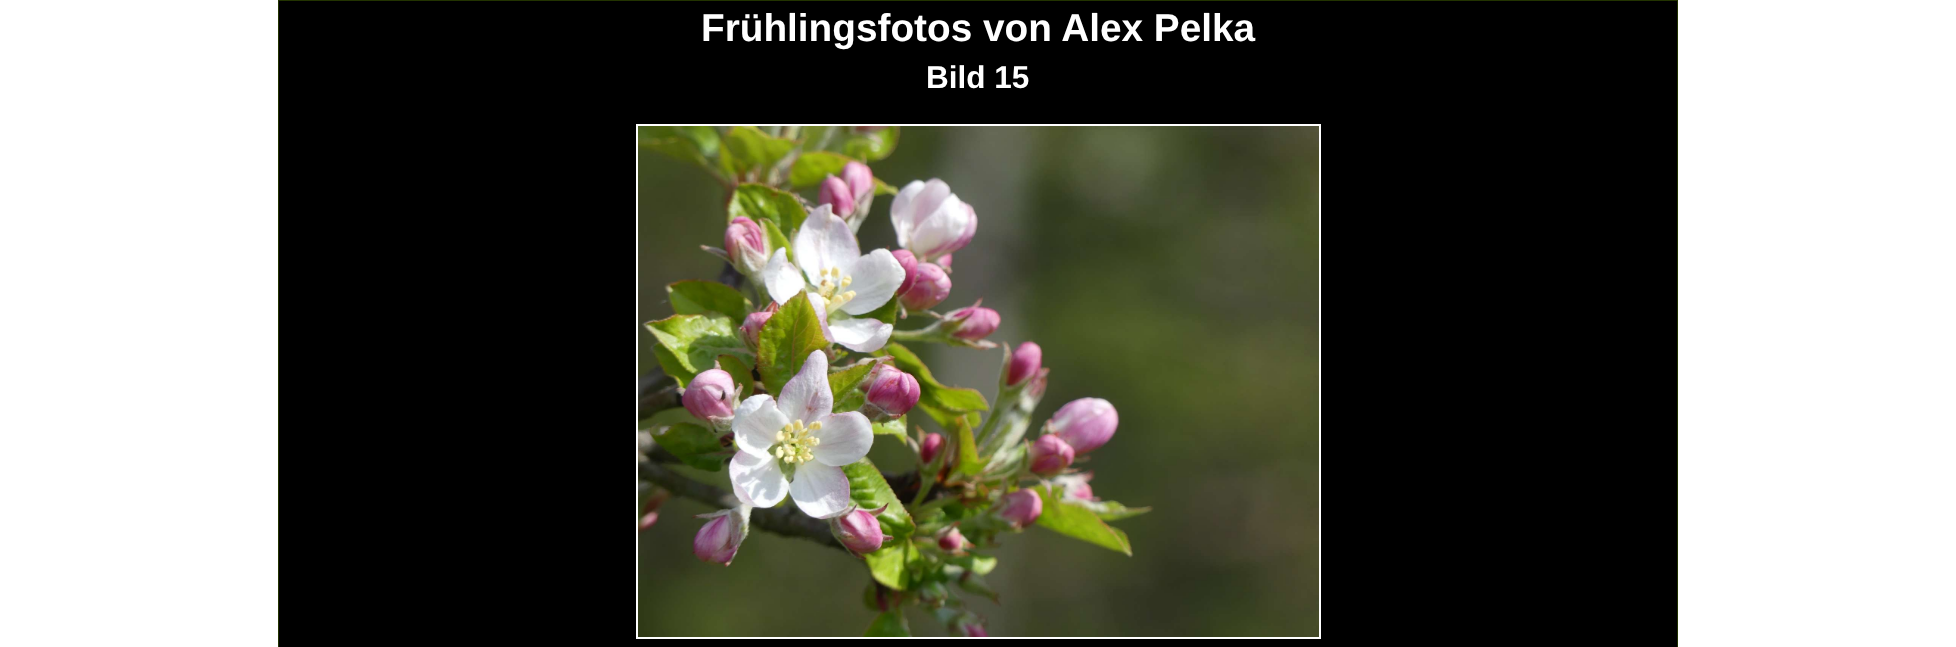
<?xml version="1.0" encoding="UTF-8"?>
<svg xmlns="http://www.w3.org/2000/svg" xmlns:xlink="http://www.w3.org/1999/xlink" width="1956" height="647">
  <rect width="100%" height="100%" fill="#ffffff" />
  <rect x="278.5" y="0.5" width="1399" height="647" fill="none" stroke="#223300" />
  <rect x="279" y="1" width="1398" height="646" fill="#000000" />
  <rect x="637" y="125" width="683" height="513" fill="none" stroke="#ffffff" stroke-width="2" />
  <image x="638" y="126" width="681" height="511" xlink:href="image1.png" />
  <text x="701" y="41" style="font-family: Liberation Sans; font-size: 38.75px; font-weight: bold; fill: #ffffff">Frühlingsfotos von Alex Pelka</text>
  <text x="926" y="88" style="font-family: Liberation Sans; font-size: 31.5px; font-weight: bold; fill: #ffffff">Bild 15</text>
</svg>
